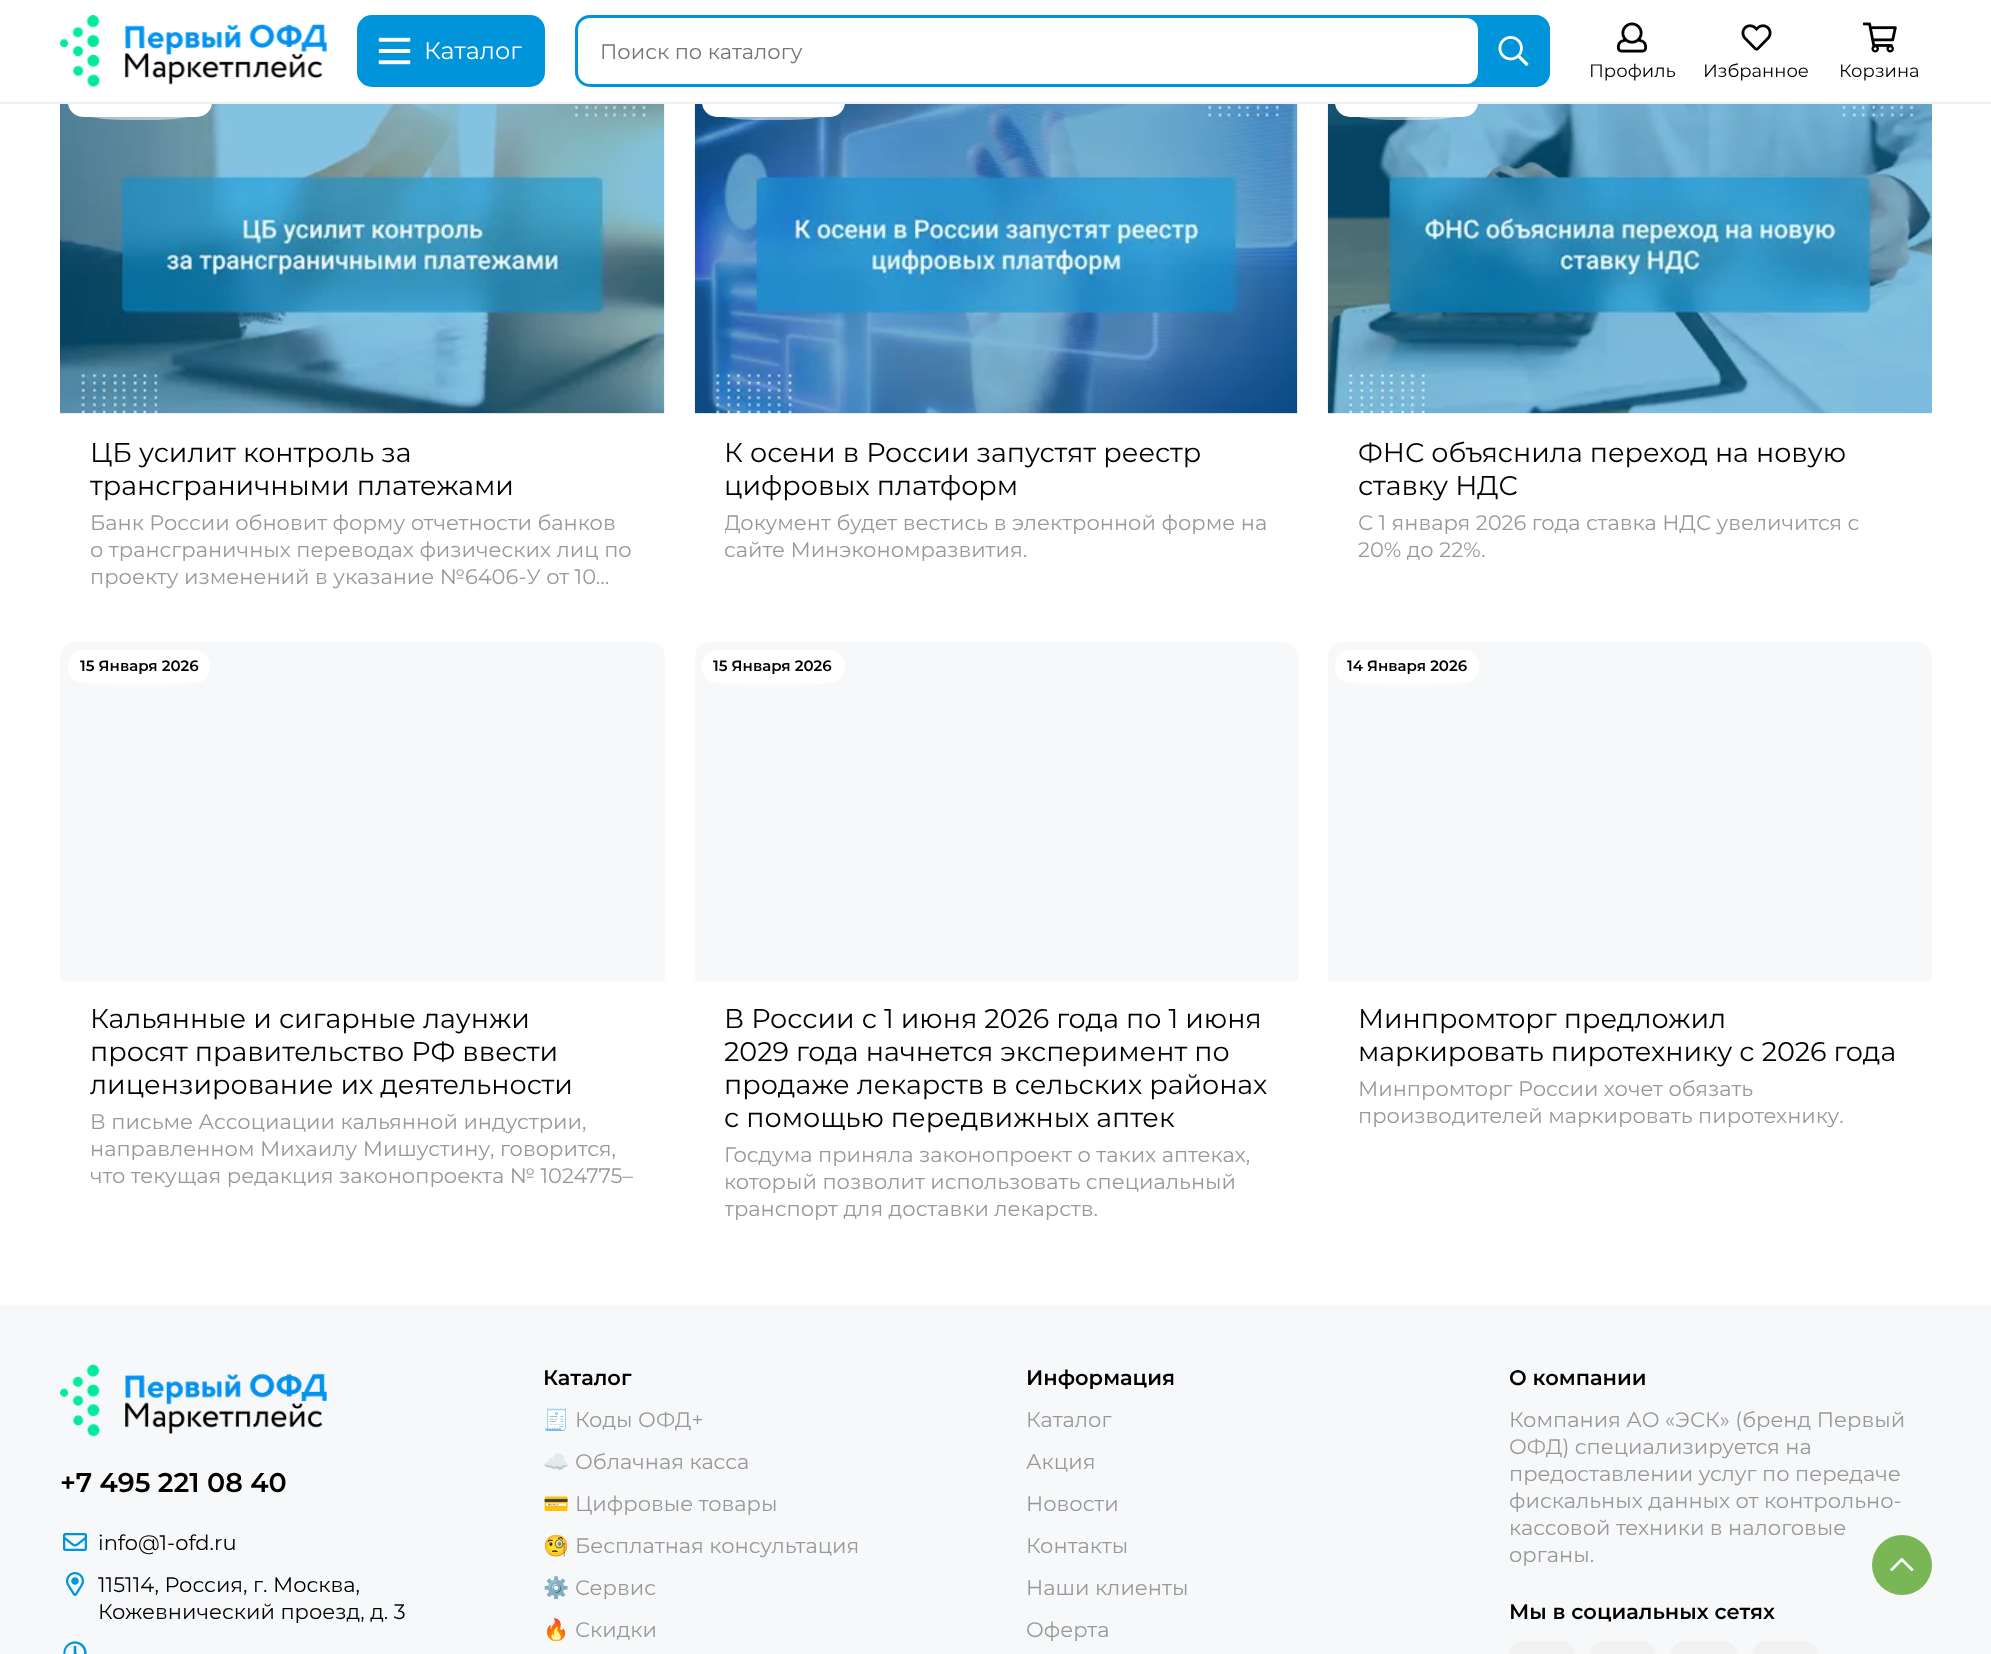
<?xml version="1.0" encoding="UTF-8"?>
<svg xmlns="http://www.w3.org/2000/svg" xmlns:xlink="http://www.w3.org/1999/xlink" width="1991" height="1654">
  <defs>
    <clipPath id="clip1"><rect x="725" y="509" width="543" height="54" /></clipPath>
    <clipPath id="clip2"><rect x="725" y="1142" width="543" height="81" /></clipPath>
  </defs>
  <rect width="100%" height="100%" fill="#ffffff" />
  <rect x="60" y="104" width="605" height="310" fill="#f7f8fa" />
  <image x="60" y="104" width="605" height="310" xlink:href="image7.png" />
  <rect x="68" y="84" width="144" height="33" rx="15" fill="#ffffff" />
  <path d="M 127 92 h 25 c 29 0 52 5 52 11 v 6 c 0 6 -23 11 -52 11 h -25 c -29 0 -52 -5 -52 -11 v -6 c 0 -6 23 -11 52 -11 z" fill="#ffffff" fill-opacity="0.5" />
  <rect x="695" y="104" width="603" height="310" fill="#f7f8fa" />
  <image x="694" y="104" width="604" height="310" xlink:href="image8.png" />
  <rect x="702" y="84" width="143" height="33" rx="15" fill="#ffffff" />
  <path d="M 760 92 h 25 c 29 0 52 5 52 11 v 6 c 0 6 -23 11 -52 11 h -25 c -29 0 -52 -5 -52 -11 v -6 c 0 -6 23 -11 52 -11 z" fill="#ffffff" fill-opacity="0.5" />
  <rect x="1328" y="413" width="604" height="1" fill="#f7f8fa" />
  <image x="1327" y="104" width="605" height="310" xlink:href="image9.png" />
  <rect x="1335" y="84" width="143" height="33" rx="15" fill="#ffffff" />
  <path d="M 1394 92 h 26 c 28 0 52 5 52 11 v 6 c 0 6 -24 11 -52 11 h -26 c -28 0 -52 -5 -52 -11 v -6 c 0 -6 24 -11 52 -11 z" fill="#ffffff" fill-opacity="0.5" />
  <rect y="102" width="1991" height="2" fill="#eeeeee" />
  <image x="60" y="15" width="267" height="72" xlink:href="image1.png" />
  <rect x="357" y="15" width="188" height="72" rx="15" fill="#0095da" />
  <image x="378" y="37" width="33" height="28" xlink:href="image2.png" />
  <rect x="575" y="15" width="975" height="72" rx="15" fill="#0095da" />
  <rect x="578" y="18" width="900" height="66" rx="12" fill="#ffffff" />
  <path d="M 1478 15 h 57 c 8.5 0 15 6.5 15 15 v 42 c 0 8.5 -6.5 15 -15 15 h -57 z" fill="#0095da" />
  <image x="1498" y="36" width="31" height="30" xlink:href="image3.png" />
  <image x="1617" y="22" width="30" height="31" xlink:href="image4.png" />
  <image x="1741" y="24" width="31" height="27" xlink:href="image5.png" />
  <image x="1863" y="22" width="34" height="31" xlink:href="image6.png" />
  <path d="M 75 642 h 575 c 8.5 0 15 6.5 15 15 v 324 h -605 v -324 c 0 -8.5 6.5 -15 15 -15 z" fill="#f7f8fa" />
  <rect x="68" y="650" width="142" height="33" rx="15" fill="#ffffff" />
  <path d="M 126 657 h 26 c 28 0 50 5 50 12 v 6 c 0 7 -22 12 -50 12 h -26 c -28 0 -51 -5 -51 -12 v -6 c 0 -7 23 -12 51 -12 z" fill="#ffffff" fill-opacity="0.5" />
  <path d="M 710 642 h 573 c 8.5 0 15 6.5 15 15 v 324 h -603 v -324 c 0 -8.5 6.5 -15 15 -15 z" fill="#f7f8fa" />
  <rect x="702" y="650" width="143" height="33" rx="15" fill="#ffffff" />
  <path d="M 760 657 h 25 c 29 0 52 5 52 12 v 6 c 0 7 -23 12 -52 12 h -25 c -29 0 -52 -5 -52 -12 v -6 c 0 -7 23 -12 52 -12 z" fill="#ffffff" fill-opacity="0.5" />
  <path d="M 1343 642 h 574 c 8.5 0 15 6.5 15 15 v 324 h -604 v -324 c 0 -8.5 6.5 -15 15 -15 z" fill="#f7f8fa" />
  <rect x="1335" y="650" width="144" height="33" rx="15" fill="#ffffff" />
  <path d="M 1395 657 h 26 c 29 0 52 5 52 12 v 6 c 0 7 -23 12 -52 12 h -26 c -29 0 -53 -5 -53 -12 v -6 c 0 -7 24 -12 53 -12 z" fill="#ffffff" fill-opacity="0.5" />
  <rect y="1305" width="1991" height="349" fill="#f7f8fa" />
  <image x="60" y="1364" width="267" height="73" xlink:href="image10.png" />
  <image x="63" y="1533" width="24" height="18" xlink:href="image11.png" />
  <image x="66" y="1572" width="18" height="24" xlink:href="image12.png" />
  <image x="63" y="1641" width="24" height="13" xlink:href="image13.png" />
  <rect x="1509" y="1641" width="66" height="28" rx="15" fill="#f1f1f1" />
  <rect x="1590" y="1641" width="66" height="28" rx="15" fill="#f1f1f1" />
  <rect x="1671" y="1641" width="66" height="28" rx="15" fill="#f1f1f1" />
  <rect x="1752" y="1641" width="66" height="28" rx="15" fill="#f1f1f1" />
  <circle cx="1902" cy="1565" r="30" fill="#79b655" />
  <image x="1890" y="1557" width="24" height="15" xlink:href="image14.png" />
  <text x="424" y="59" style="font-family: Montserrat; font-size: 24px; fill: #ffffff">Каталог</text>
  <text x="600" y="59" style="font-family: Montserrat; font-size: 21px; fill: #757575">Поиск по каталогу</text>
  <text x="1589" y="77" style="font-family: Montserrat; font-size: 18px; fill: #000000">Профиль</text>
  <text x="1703" y="77" style="font-family: Montserrat; font-size: 18px; fill: #000000">Избранное</text>
  <text x="1839" y="77" style="font-family: Montserrat; font-size: 18px; fill: #000000">Корзина</text>
  <text x="90" y="462" style="font-family: Montserrat; font-size: 27px; fill: #000000">ЦБ усилит контроль за</text>
  <text x="90" y="495" style="font-family: Montserrat; font-size: 27px; fill: #000000">трансграничными платежами</text>
  <text x="90" y="530" style="font-family: Montserrat; font-size: 21px; fill: #999999">Банк России обновит форму отчетности банков</text>
  <text x="90" y="557" style="font-family: Montserrat; font-size: 21px; fill: #999999">о трансграничных переводах физических лиц по</text>
  <text x="90" y="584" style="font-family: Montserrat; font-size: 21px; fill: #999999">проекту изменений в указание №6406-У от 10…</text>
  <text x="724" y="462" style="font-family: Montserrat; font-size: 27px; fill: #000000">К осени в России запустят реестр</text>
  <text x="724" y="495" style="font-family: Montserrat; font-size: 27px; fill: #000000">цифровых платформ</text>
  <g clip-path="url(#clip1)">
    <text x="724" y="530" style="font-family: Montserrat; font-size: 21px; fill: #999999">Документ будет вестись в электронной форме на</text>
  </g>
  <text x="724" y="557" style="font-family: Montserrat; font-size: 21px; fill: #999999">сайте Минэкономразвития.</text>
  <text x="1358" y="462" style="font-family: Montserrat; font-size: 27px; fill: #000000">ФНС объяснила переход на новую</text>
  <text x="1358" y="495" style="font-family: Montserrat; font-size: 27px; fill: #000000">ставку НДС</text>
  <text x="1358" y="530" style="font-family: Montserrat; font-size: 21px; fill: #999999">С 1 января 2026 года ставка НДС увеличится с</text>
  <text x="1358" y="557" style="font-family: Montserrat; font-size: 21px; fill: #999999">20% до 22%.</text>
  <text x="80" y="671" style="font-family: Montserrat; font-size: 15px; font-weight: 600; fill: #000000">15 Января 2026</text>
  <text x="90" y="1028" style="font-family: Montserrat; font-size: 27px; fill: #000000">Кальянные и сигарные лаунжи</text>
  <text x="90" y="1061" style="font-family: Montserrat; font-size: 27px; fill: #000000">просят правительство РФ ввести</text>
  <text x="90" y="1094" style="font-family: Montserrat; font-size: 27px; fill: #000000">лицензирование их деятельности</text>
  <text x="90" y="1129" style="font-family: Montserrat; font-size: 21px; fill: #999999">В письме Ассоциации кальянной индустрии,</text>
  <text x="90" y="1156" style="font-family: Montserrat; font-size: 21px; fill: #999999">направленном Михаилу Мишустину, говорится,</text>
  <text x="90" y="1183" style="font-family: Montserrat; font-size: 21px; fill: #999999">что текущая редакция законопроекта № 1024775–</text>
  <text x="713" y="671" style="font-family: Montserrat; font-size: 15px; font-weight: 600; fill: #000000">15 Января 2026</text>
  <text x="724" y="1028" style="font-family: Montserrat; font-size: 27px; fill: #000000">В России с 1 июня 2026 года по 1 июня</text>
  <text x="724" y="1061" style="font-family: Montserrat; font-size: 27px; fill: #000000">2029 года начнется эксперимент по</text>
  <text x="724" y="1094" style="font-family: Montserrat; font-size: 27px; fill: #000000">продаже лекарств в сельских районах</text>
  <text x="724" y="1127" style="font-family: Montserrat; font-size: 27px; fill: #000000">с помощью передвижных аптек</text>
  <text x="724" y="1162" style="font-family: Montserrat; font-size: 21px; fill: #999999">Госдума приняла законопроект о таких аптеках,</text>
  <text x="724" y="1189" style="font-family: Montserrat; font-size: 21px; fill: #999999">который позволит использовать специальный</text>
  <g clip-path="url(#clip2)">
    <text x="724" y="1216" style="font-family: Montserrat; font-size: 21px; fill: #999999">транспорт для доставки лекарств.</text>
  </g>
  <text x="1347" y="671" style="font-family: Montserrat; font-size: 15px; font-weight: 600; fill: #000000">14 Января 2026</text>
  <text x="1358" y="1028" style="font-family: Montserrat; font-size: 27px; fill: #000000">Минпромторг предложил</text>
  <text x="1358" y="1061" style="font-family: Montserrat; font-size: 27px; fill: #000000">маркировать пиротехнику с 2026 года</text>
  <text x="1358" y="1096" style="font-family: Montserrat; font-size: 21px; fill: #999999">Минпромторг России хочет обязать</text>
  <text x="1358" y="1123" style="font-family: Montserrat; font-size: 21px; fill: #999999">производителей маркировать пиротехнику.</text>
  <text x="60" y="1492" style="font-family: Montserrat; font-size: 27px; font-weight: 600; fill: #000000">+7 495 221 08 40</text>
  <text x="98" y="1550" style="font-family: Montserrat; font-size: 21px; fill: #000000">info@1-ofd.ru</text>
  <text x="98" y="1592" style="font-family: Montserrat; font-size: 21px; fill: #000000">115114, Россия, г. Москва,</text>
  <text x="98" y="1619" style="font-family: Montserrat; font-size: 21px; fill: #000000">Кожевнический проезд, д. 3</text>
  <text x="543" y="1385" style="font-family: Montserrat; font-size: 21px; font-weight: 600; fill: #000000">Каталог</text>
  <text x="543" y="1427" style="font-family: Noto Color Emoji; font-size: 21px; fill: #999999">🧾</text>
  <text x="575" y="1427" style="font-family: Montserrat; font-size: 21px; fill: #999999">Коды ОФД+</text>
  <text x="543" y="1469" style="font-family: Noto Color Emoji; font-size: 21px; fill: #999999">☁️</text>
  <text x="575" y="1469" style="font-family: Montserrat; font-size: 21px; fill: #999999">Облачная касса</text>
  <text x="543" y="1511" style="font-family: Noto Color Emoji; font-size: 21px; fill: #999999">💳</text>
  <text x="575" y="1511" style="font-family: Montserrat; font-size: 21px; fill: #999999">Цифровые товары</text>
  <text x="543" y="1553" style="font-family: Noto Color Emoji; font-size: 21px; fill: #999999">🧐</text>
  <text x="575" y="1553" style="font-family: Montserrat; font-size: 21px; fill: #999999">Бесплатная консультация</text>
  <text x="543" y="1595" style="font-family: Noto Color Emoji; font-size: 21px; fill: #999999">⚙️</text>
  <text x="575" y="1595" style="font-family: Montserrat; font-size: 21px; fill: #999999">Сервис</text>
  <text x="543" y="1637" style="font-family: Noto Color Emoji; font-size: 21px; fill: #999999">🔥</text>
  <text x="575" y="1637" style="font-family: Montserrat; font-size: 21px; fill: #999999">Скидки</text>
  <text x="1026" y="1385" style="font-family: Montserrat; font-size: 21px; font-weight: 600; fill: #000000">Информация</text>
  <text x="1026" y="1427" style="font-family: Montserrat; font-size: 21px; fill: #999999">Каталог</text>
  <text x="1026" y="1469" style="font-family: Montserrat; font-size: 21px; fill: #999999">Акция</text>
  <text x="1026" y="1511" style="font-family: Montserrat; font-size: 21px; fill: #999999">Новости</text>
  <text x="1026" y="1553" style="font-family: Montserrat; font-size: 21px; fill: #999999">Контакты</text>
  <text x="1026" y="1595" style="font-family: Montserrat; font-size: 21px; fill: #999999">Наши клиенты</text>
  <text x="1026" y="1637" style="font-family: Montserrat; font-size: 21px; fill: #999999">Оферта</text>
  <text x="1509" y="1385" style="font-family: Montserrat; font-size: 21px; font-weight: 600; fill: #000000">О компании</text>
  <text x="1509" y="1427" style="font-family: Montserrat; font-size: 21px; fill: #999999">Компания АО «ЭСК» (бренд Первый</text>
  <text x="1509" y="1454" style="font-family: Montserrat; font-size: 21px; fill: #999999">ОФД) специализируется на</text>
  <text x="1509" y="1481" style="font-family: Montserrat; font-size: 21px; fill: #999999">предоставлении услуг по передаче</text>
  <text x="1509" y="1508" style="font-family: Montserrat; font-size: 21px; fill: #999999">фискальных данных от контрольно-</text>
  <text x="1509" y="1535" style="font-family: Montserrat; font-size: 21px; fill: #999999">кассовой техники в налоговые</text>
  <text x="1509" y="1562" style="font-family: Montserrat; font-size: 21px; fill: #999999">органы.</text>
  <text x="1509" y="1619" style="font-family: Montserrat; font-size: 21px; font-weight: 600; fill: #000000">Мы в социальных сетях</text>
</svg>
